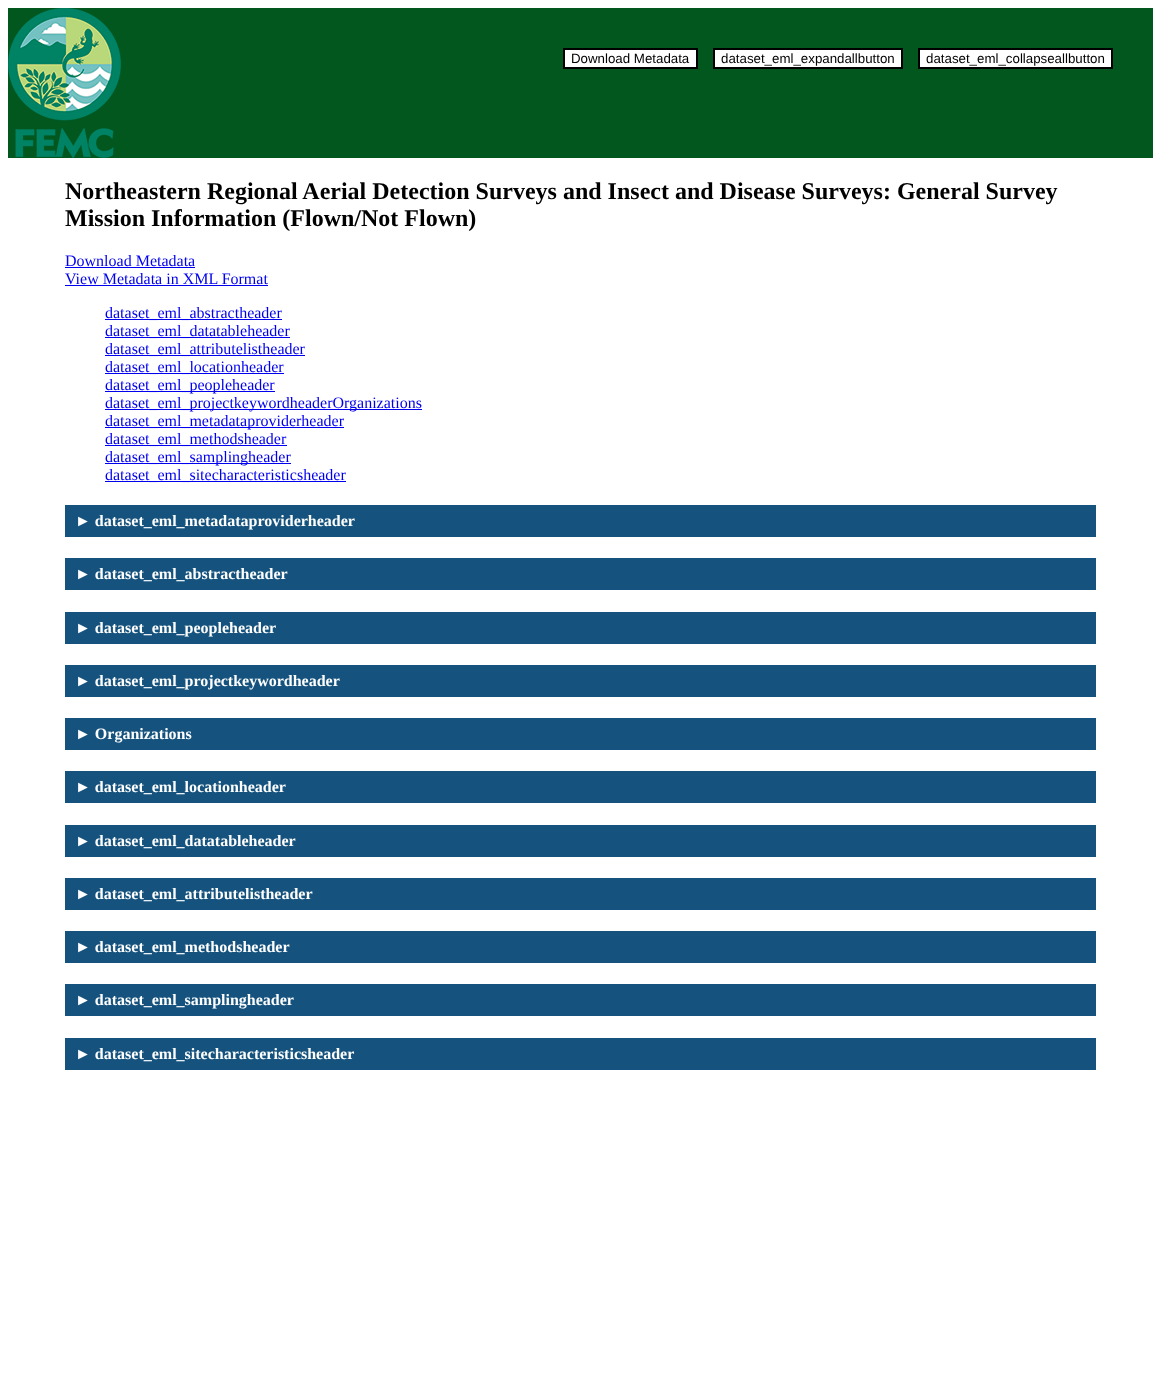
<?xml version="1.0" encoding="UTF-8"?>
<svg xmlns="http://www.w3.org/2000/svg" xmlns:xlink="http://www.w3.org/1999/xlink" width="1161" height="1375">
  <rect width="100%" height="100%" fill="#ffffff" />
  <rect x="8" y="8" width="1145" height="150" fill="#01571e" />
  <image x="8" y="8" width="113" height="150" xlink:href="image1.png" />
  <rect x="564" y="49" width="133" height="19" fill="#ffffff" stroke="#000000" stroke-width="2" />
  <rect x="714" y="49" width="188" height="19" fill="#ffffff" stroke="#000000" stroke-width="2" />
  <rect x="919" y="49" width="193" height="19" fill="#ffffff" stroke="#000000" stroke-width="2" />
  <rect x="65" y="267" width="130" height="1" fill="#0000ee" />
  <rect x="65" y="285" width="203" height="1" fill="#0000ee" />
  <rect x="105" y="319" width="177" height="1" fill="#0000ee" />
  <rect x="105" y="337" width="185" height="1" fill="#0000ee" />
  <rect x="105" y="355" width="200" height="1" fill="#0000ee" />
  <rect x="105" y="373" width="179" height="1" fill="#0000ee" />
  <rect x="105" y="391" width="170" height="1" fill="#0000ee" />
  <rect x="105" y="409" width="317" height="1" fill="#0000ee" />
  <rect x="105" y="427" width="239" height="1" fill="#0000ee" />
  <rect x="105" y="445" width="182" height="1" fill="#0000ee" />
  <rect x="105" y="463" width="186" height="1" fill="#0000ee" />
  <rect x="105" y="481" width="241" height="1" fill="#0000ee" />
  <rect x="65" y="505" width="1031" height="32" fill="#15537e" />
  <rect x="65" y="558" width="1031" height="32" fill="#15537e" />
  <rect x="65" y="612" width="1031" height="32" fill="#15537e" />
  <rect x="65" y="665" width="1031" height="32" fill="#15537e" />
  <rect x="65" y="718" width="1031" height="32" fill="#15537e" />
  <rect x="65" y="771" width="1031" height="32" fill="#15537e" />
  <rect x="65" y="825" width="1031" height="32" fill="#15537e" />
  <rect x="65" y="878" width="1031" height="32" fill="#15537e" />
  <rect x="65" y="931" width="1031" height="32" fill="#15537e" />
  <rect x="65" y="984" width="1031" height="32" fill="#15537e" />
  <rect x="65" y="1038" width="1031" height="32" fill="#15537e" />
  <text x="571" y="63" style="font-family: Liberation Sans; font-size: 13.3px; fill: #000000">Download Metadata</text>
  <text x="721" y="63" style="font-family: Liberation Sans; font-size: 13.3px; fill: #000000">dataset_eml_expandallbutton</text>
  <text x="926" y="63" style="font-family: Liberation Sans; font-size: 13.3px; fill: #000000">dataset_eml_collapseallbutton</text>
  <text x="65" y="199" style="font-family: Liberation Serif; font-size: 24px; font-weight: bold; fill: #000000">Northeastern Regional Aerial Detection Surveys and Insect and Disease Surveys: General Survey</text>
  <text x="65" y="226" style="font-family: Liberation Serif; font-size: 24px; font-weight: bold; fill: #000000">Mission Information (Flown/Not Flown)</text>
  <text x="65" y="266" style="font-family: Liberation Serif; font-size: 16px; fill: #0000ee">Download Metadata</text>
  <text x="65" y="284" style="font-family: Liberation Serif; font-size: 16px; fill: #0000ee">View Metadata in XML Format</text>
  <text x="105" y="318" style="font-family: Liberation Serif; font-size: 16px; fill: #0000ee">dataset_eml_abstractheader</text>
  <text x="105" y="336" style="font-family: Liberation Serif; font-size: 16px; fill: #0000ee">dataset_eml_datatableheader</text>
  <text x="105" y="354" style="font-family: Liberation Serif; font-size: 16px; fill: #0000ee">dataset_eml_attributelistheader</text>
  <text x="105" y="372" style="font-family: Liberation Serif; font-size: 16px; fill: #0000ee">dataset_eml_locationheader</text>
  <text x="105" y="390" style="font-family: Liberation Serif; font-size: 16px; fill: #0000ee">dataset_eml_peopleheader</text>
  <text x="105" y="408" style="font-family: Liberation Serif; font-size: 16px; fill: #0000ee">dataset_eml_projectkeywordheaderOrganizations</text>
  <text x="105" y="426" style="font-family: Liberation Serif; font-size: 16px; fill: #0000ee">dataset_eml_metadataproviderheader</text>
  <text x="105" y="444" style="font-family: Liberation Serif; font-size: 16px; fill: #0000ee">dataset_eml_methodsheader</text>
  <text x="105" y="462" style="font-family: Liberation Serif; font-size: 16px; fill: #0000ee">dataset_eml_samplingheader</text>
  <text x="105" y="480" style="font-family: Liberation Serif; font-size: 16px; fill: #0000ee">dataset_eml_sitecharacteristicsheader</text>
  <text x="75" y="526" style="font-family: Liberation Serif; font-size: 16px; font-weight: bold; fill: #ffffff">► dataset_eml_metadataproviderheader</text>
  <text x="75" y="579" style="font-family: Liberation Serif; font-size: 16px; font-weight: bold; fill: #ffffff">► dataset_eml_abstractheader</text>
  <text x="75" y="633" style="font-family: Liberation Serif; font-size: 16px; font-weight: bold; fill: #ffffff">► dataset_eml_peopleheader</text>
  <text x="75" y="686" style="font-family: Liberation Serif; font-size: 16px; font-weight: bold; fill: #ffffff">► dataset_eml_projectkeywordheader</text>
  <text x="75" y="739" style="font-family: Liberation Serif; font-size: 16px; font-weight: bold; fill: #ffffff">► Organizations</text>
  <text x="75" y="792" style="font-family: Liberation Serif; font-size: 16px; font-weight: bold; fill: #ffffff">► dataset_eml_locationheader</text>
  <text x="75" y="846" style="font-family: Liberation Serif; font-size: 16px; font-weight: bold; fill: #ffffff">► dataset_eml_datatableheader</text>
  <text x="75" y="899" style="font-family: Liberation Serif; font-size: 16px; font-weight: bold; fill: #ffffff">► dataset_eml_attributelistheader</text>
  <text x="75" y="952" style="font-family: Liberation Serif; font-size: 16px; font-weight: bold; fill: #ffffff">► dataset_eml_methodsheader</text>
  <text x="75" y="1005" style="font-family: Liberation Serif; font-size: 16px; font-weight: bold; fill: #ffffff">► dataset_eml_samplingheader</text>
  <text x="75" y="1059" style="font-family: Liberation Serif; font-size: 16px; font-weight: bold; fill: #ffffff">► dataset_eml_sitecharacteristicsheader</text>
</svg>
